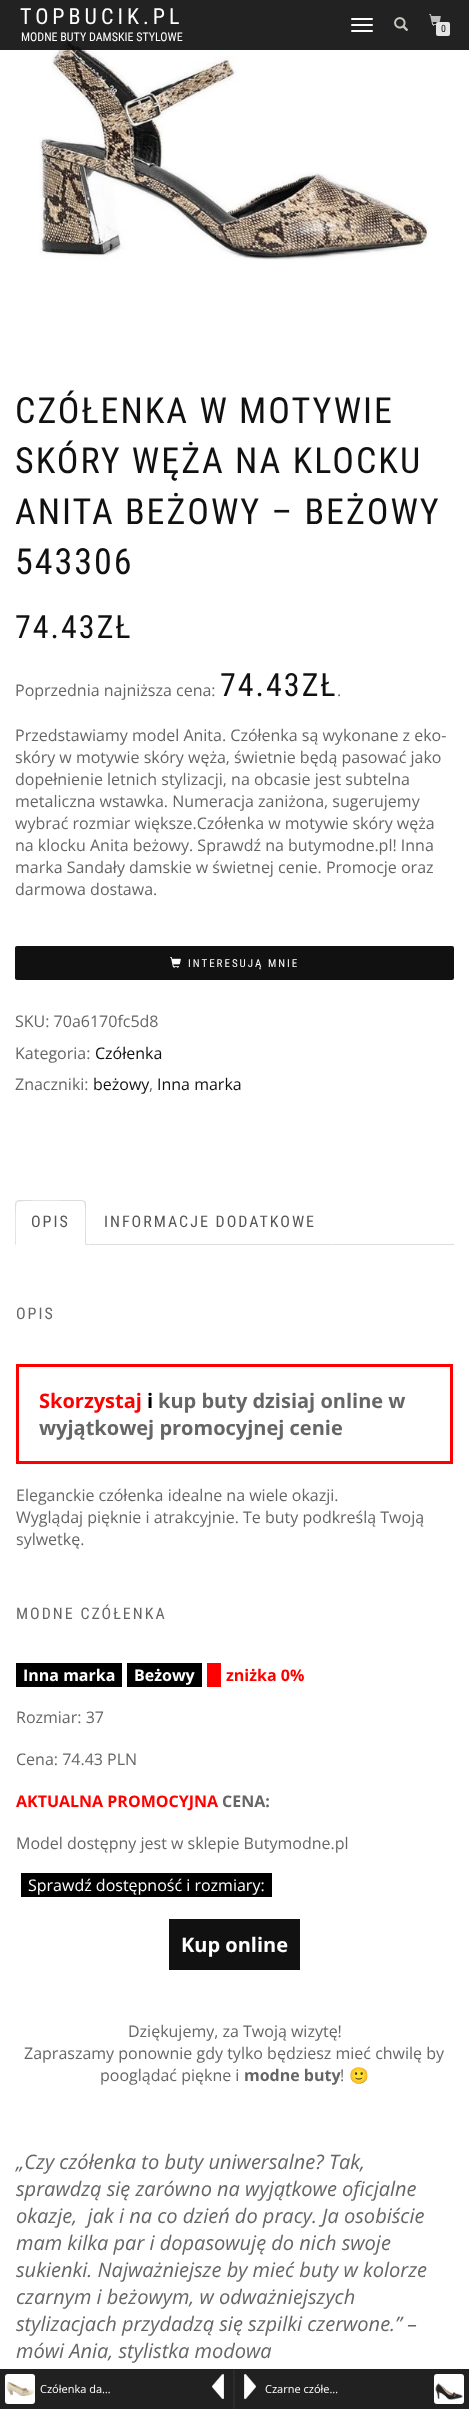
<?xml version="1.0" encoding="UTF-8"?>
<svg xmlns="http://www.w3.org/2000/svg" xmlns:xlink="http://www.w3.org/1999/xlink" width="469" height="2409">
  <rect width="100%" height="100%" fill="#ffffff" />
  <image x="39" y="38" width="390" height="222" xlink:href="image3.png" />
  <rect width="469" height="50" fill="#0a0a0a" fill-opacity="0.9" />
  <rect x="351" y="18" width="22" height="2" rx="1" fill="#ffffff" />
  <rect x="351" y="24" width="22" height="2" rx="1" fill="#ffffff" />
  <rect x="351" y="30" width="22" height="2" rx="1" fill="#ffffff" />
  <image x="394" y="17" width="15" height="14" xlink:href="image1.png" />
  <image x="429" y="14" width="12" height="12" xlink:href="image2.png" />
  <rect x="436" y="22" width="14" height="14" rx="2" fill="#e5e5e5" />
  <rect x="15" y="946" width="439" height="34" rx="2" fill="#111111" />
  <image x="170" y="957" width="11" height="11" xlink:href="image4.png" />
  <rect x="86" y="1244" width="368" height="1" fill="#dddddd" />
  <path d="M 19 1200 l -3 1 l 1 1 c 2 -2 48 -1 55 -1 h 10 l 2 1 l 1 -1 l -3 -1 z" fill="#dddddd" />
  <path d="M 86 1245 v -41 c 0 -1 0 -2 -1 -3 l -1 1 c 2 2 1 37 1 42 z" fill="#dddddd" />
  <path d="M 15 1245 l 1 -1 c 0 -5 -1 -40 1 -42 l -1 -1 l -1 3 z" fill="#dddddd" />
  <path d="M 332 1245 v -41 c 0 -1 0 -2 -1 -3 l -1 1 c 2 2 1 37 1 42 z" fill="#ffffff" />
  <path d="M 88 1245 l 1 -1 c 0 -5 -1 -40 1 -42 l -1 -1 l -1 3 z" fill="#ffffff" />
  <rect x="17.5" y="1365.5" width="434" height="97" fill="none" stroke="#ff0000" stroke-width="3" />
  <rect x="16" y="1663" width="106" height="24" fill="#000000" />
  <rect x="127" y="1663" width="75" height="24" fill="#000000" />
  <rect x="207" y="1663" width="14" height="24" fill="#ff0000" />
  <rect x="21" y="1873" width="251" height="24" fill="#000000" />
  <rect x="169" y="1919" width="131" height="51" fill="#111111" />
  <rect y="2369" width="469" height="40" fill="#212121" />
  <rect x="233" y="2369" width="2" height="40" fill="#2b2b2b" />
  <image x="5" y="2374" width="30" height="30" xlink:href="image5.png" />
  <image x="212" y="2374" width="12" height="25" xlink:href="image6.png" />
  <image x="244" y="2374" width="12" height="25" xlink:href="image7.png" />
  <image x="434" y="2374" width="30" height="30" xlink:href="image8.png" />
  <text x="20" y="24" style="font-family: Roboto Condensed; font-size: 22px; letter-spacing: 4px; fill: #ffffff">TOPBUCIK.PL</text>
  <text x="21" y="41" style="font-family: Roboto Condensed; font-size: 12px; fill: #ffffff">MODNE BUTY DAMSKIE STYLOWE</text>
  <text x="441" y="32" style="font-family: Roboto Condensed; font-size: 10px; fill: #111111">0</text>
  <text x="15" y="423" style="font-family: Roboto Condensed; font-size: 36px; letter-spacing: 2px; fill: #111111">CZÓŁENKA W MOTYWIE</text>
  <text x="15" y="473" style="font-family: Roboto Condensed; font-size: 36px; letter-spacing: 2px; fill: #111111">SKÓRY WĘŻA NA KLOCKU</text>
  <text x="15" y="524" style="font-family: Roboto Condensed; font-size: 36px; letter-spacing: 2px; fill: #111111">ANITA BEŻOWY – BEŻOWY</text>
  <text x="15" y="574" style="font-family: Roboto Condensed; font-size: 36px; letter-spacing: 2px; fill: #111111">543306</text>
  <text x="15" y="638" style="font-family: Roboto Condensed; font-size: 32px; letter-spacing: 2px; fill: #111111">74.43ZŁ</text>
  <text x="15" y="696" style="font-family: Open Sans; font-size: 16px; fill: #666666">Poprzednia najniższa cena:</text>
  <text x="220" y="696" style="font-family: Roboto Condensed; font-size: 32px; letter-spacing: 2px; fill: #111111">74.43ZŁ</text>
  <text x="337" y="696" style="font-family: Open Sans; font-size: 16px; fill: #666666">.</text>
  <text x="15" y="741" style="font-family: Open Sans; font-size: 16px; fill: #666666">Przedstawiamy model Anita. Czółenka są wykonane z eko-</text>
  <text x="15" y="763" style="font-family: Open Sans; font-size: 16px; fill: #666666">skóry w motywie skóry węża, świetnie będą pasować jako</text>
  <text x="15" y="785" style="font-family: Open Sans; font-size: 16px; fill: #666666">dopełnienie letnich stylizacji, na obcasie jest subtelna</text>
  <text x="15" y="807" style="font-family: Open Sans; font-size: 16px; fill: #666666">metaliczna wstawka. Numeracja zaniżona, sugerujemy</text>
  <text x="15" y="829" style="font-family: Open Sans; font-size: 16px; fill: #666666">wybrać rozmiar większe.Czółenka w motywie skóry węża</text>
  <text x="15" y="851" style="font-family: Open Sans; font-size: 16px; fill: #666666">na klocku Anita beżowy. Sprawdź na butymodne.pl! Inna</text>
  <text x="15" y="873" style="font-family: Open Sans; font-size: 16px; fill: #666666">marka Sandały damskie w świetnej cenie. Promocje oraz</text>
  <text x="15" y="895" style="font-family: Open Sans; font-size: 16px; fill: #666666">darmowa dostawa.</text>
  <text x="188" y="967" style="font-family: Roboto Condensed; font-size: 11px; letter-spacing: 2px; fill: #ffffff">INTERESUJĄ MNIE</text>
  <text x="15" y="1027" style="font-family: Open Sans; font-size: 16px; fill: #666666">SKU: 70a6170fc5d8</text>
  <text x="15" y="1059" style="font-family: Open Sans; font-size: 16px; fill: #666666">Kategoria:</text>
  <text x="95" y="1059" style="font-family: Open Sans; font-size: 16px; fill: #111111">Czółenka</text>
  <text x="15" y="1090" style="font-family: Open Sans; font-size: 16px; fill: #666666">Znaczniki:</text>
  <text x="93" y="1090" style="font-family: Open Sans; font-size: 16px; fill: #111111">beżowy</text>
  <text x="149" y="1090" style="font-family: Open Sans; font-size: 16px; fill: #666666">,</text>
  <text x="157" y="1090" style="font-family: Open Sans; font-size: 16px; fill: #111111">Inna marka</text>
  <text x="31" y="1227" style="font-family: Roboto Condensed; font-size: 16px; letter-spacing: 2px; fill: #555555">OPIS</text>
  <text x="104" y="1227" style="font-family: Roboto Condensed; font-size: 16px; letter-spacing: 2px; fill: #555555">INFORMACJE DODATKOWE</text>
  <text x="16" y="1319" style="font-family: Roboto Condensed; font-size: 16px; letter-spacing: 2px; fill: #666666">OPIS</text>
  <text x="39" y="1408" style="font-family: Open Sans; font-size: 20px; font-weight: bold; fill: #ff0000">Skorzystaj</text>
  <text x="147" y="1408" style="font-family: Open Sans; font-size: 20px; font-weight: bold; fill: #000000">i</text>
  <text x="158" y="1408" style="font-family: Open Sans; font-size: 20px; font-weight: bold; fill: #666666">kup buty dzisiaj online w</text>
  <text x="39" y="1435" style="font-family: Open Sans; font-size: 20px; font-weight: bold; fill: #666666">wyjątkowej promocyjnej cenie</text>
  <text x="16" y="1501" style="font-family: Open Sans; font-size: 16px; fill: #666666">Eleganckie czółenka idealne na wiele okazji.</text>
  <text x="16" y="1523" style="font-family: Open Sans; font-size: 16px; fill: #666666">Wyglądaj pięknie i atrakcyjnie. Te buty podkreślą Twoją</text>
  <text x="16" y="1545" style="font-family: Open Sans; font-size: 16px; fill: #666666">sylwetkę.</text>
  <text x="16" y="1619" style="font-family: Roboto Condensed; font-size: 16px; letter-spacing: 2px; fill: #666666">MODNE CZÓŁENKA</text>
  <text x="23" y="1681" style="font-family: Open Sans; font-size: 16px; font-weight: bold; fill: #ffffff">Inna marka</text>
  <text x="134" y="1681" style="font-family: Open Sans; font-size: 16px; font-weight: bold; fill: #ffffff">Beżowy</text>
  <text x="226" y="1681" style="font-family: Open Sans; font-size: 16px; font-weight: bold; fill: #ff0000">zniżka 0%</text>
  <text x="16" y="1723" style="font-family: Open Sans; font-size: 16px; fill: #666666">Rozmiar: 37</text>
  <text x="16" y="1765" style="font-family: Open Sans; font-size: 16px; fill: #666666">Cena: 74.43 PLN</text>
  <text x="16" y="1807" style="font-family: Open Sans; font-size: 16px; font-weight: bold; fill: #ff0000">AKTUALNA PROMOCYJNA</text>
  <text x="222" y="1807" style="font-family: Open Sans; font-size: 16px; font-weight: bold; fill: #666666">CENA:</text>
  <text x="16" y="1849" style="font-family: Open Sans; font-size: 16px; fill: #666666">Model dostępny jest w sklepie Butymodne.pl</text>
  <text x="28" y="1891" style="font-family: Open Sans; font-size: 16px; fill: #ffffff">Sprawdź dostępność i rozmiary:</text>
  <text x="181" y="1952" style="font-family: Open Sans; font-size: 20px; font-weight: bold; fill: #ffffff">Kup online</text>
  <text x="128" y="2037" style="font-family: Open Sans; font-size: 16px; fill: #666666">Dziękujemy, za Twoją wizytę!</text>
  <text x="24" y="2059" style="font-family: Open Sans; font-size: 16px; fill: #666666">Zapraszamy ponownie gdy tylko będziesz mieć chwilę by</text>
  <text x="100" y="2081" style="font-family: Open Sans; font-size: 16px; fill: #666666">pooglądać piękne i</text>
  <text x="244" y="2081" style="font-family: Open Sans; font-size: 16px; font-weight: bold; fill: #666666">modne buty</text>
  <text x="340" y="2081" style="font-family: Open Sans; font-size: 16px; fill: #666666">!</text>
  <text x="349" y="2081" style="font-family: Noto Color Emoji; font-size: 16px; fill: #666666">🙂</text>
  <text x="16" y="2169" style="font-family: Open Sans; font-size: 20px; font-style: italic; fill: #666666">„Czy czółenka to buty uniwersalne? Tak,</text>
  <text x="16" y="2196" style="font-family: Open Sans; font-size: 20px; font-style: italic; fill: #666666">sprawdzą się zarówno na wyjątkowe oficjalne</text>
  <text x="16" y="2223" style="font-family: Open Sans; font-size: 20px; font-style: italic; fill: #666666" xml:space="preserve">okazje,  jak i na co dzień do pracy. Ja osobiście</text>
  <text x="16" y="2250" style="font-family: Open Sans; font-size: 20px; font-style: italic; fill: #666666">mam kilka par i dopasowuję do nich swoje</text>
  <text x="16" y="2277" style="font-family: Open Sans; font-size: 20px; font-style: italic; fill: #666666">sukienki. Najważniejsze by mieć buty w kolorze</text>
  <text x="16" y="2304" style="font-family: Open Sans; font-size: 20px; font-style: italic; fill: #666666">czarnym i beżowym, w odważniejszych</text>
  <text x="16" y="2331" style="font-family: Open Sans; font-size: 20px; font-style: italic; fill: #666666">stylizacjach przydadzą się szpilki czerwone.” –</text>
  <text x="16" y="2358" style="font-family: Open Sans; font-size: 20px; font-style: italic; fill: #666666">mówi Ania, stylistka modowa</text>
  <text x="40" y="2393" style="font-family: Open Sans; font-size: 11px; fill: #ffffff">Czółenka da…</text>
  <text x="265" y="2393" style="font-family: Open Sans; font-size: 11px; fill: #ffffff">Czarne czółe…</text>
</svg>
